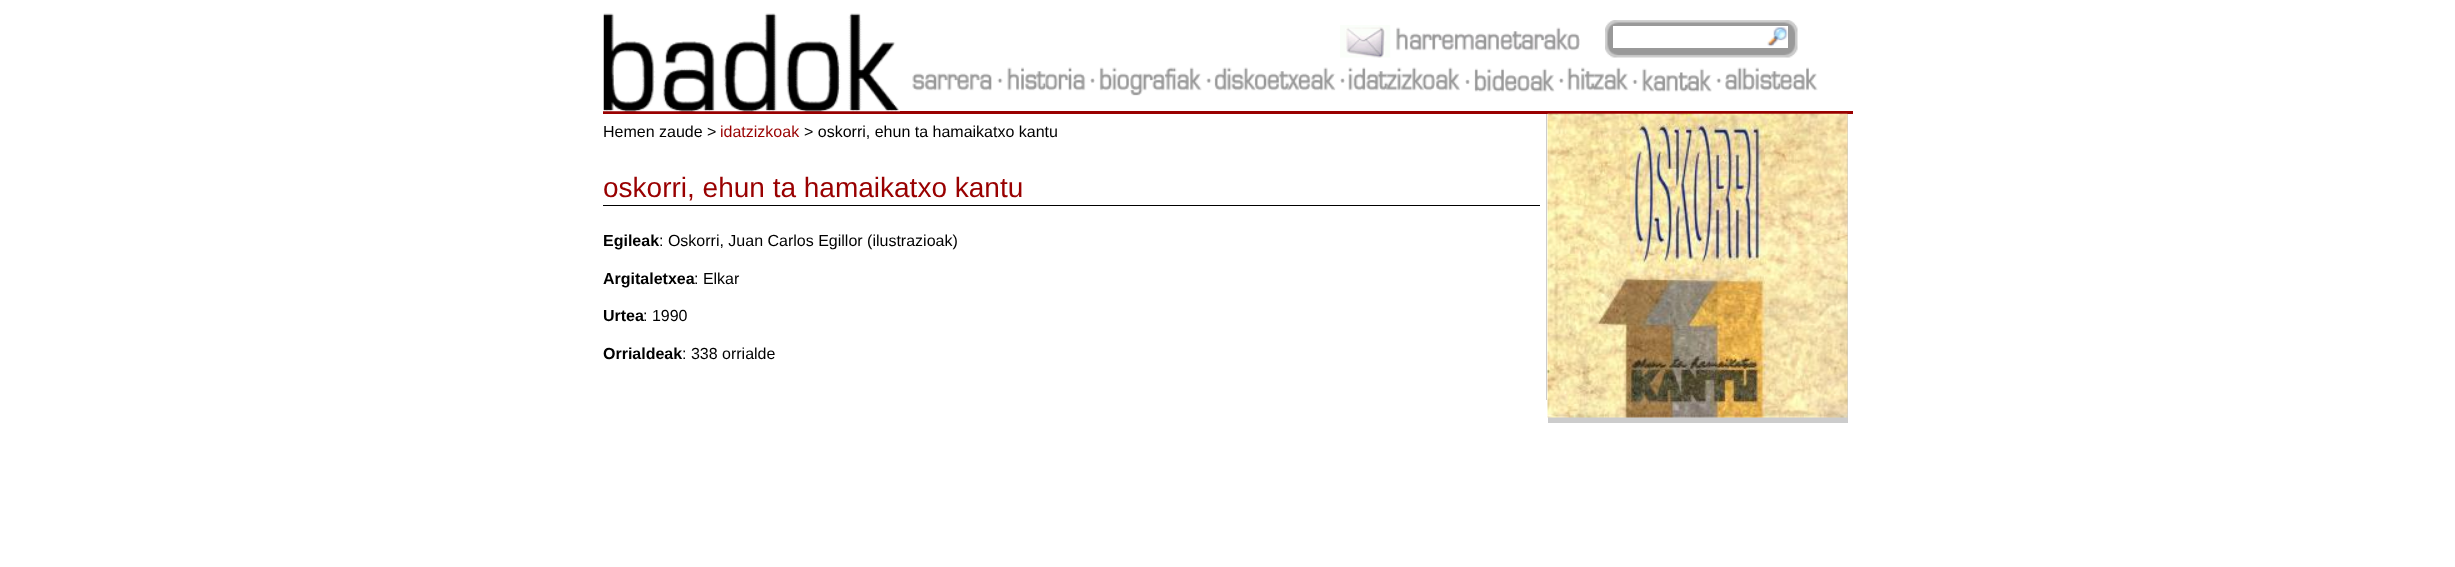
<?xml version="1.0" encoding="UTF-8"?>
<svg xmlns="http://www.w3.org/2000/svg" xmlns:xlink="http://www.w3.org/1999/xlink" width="2455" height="567">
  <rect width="100%" height="100%" fill="#ffffff" />
  <rect x="603" y="111" width="1250" height="3" fill="#990000" />
  <image x="603" y="13" width="297" height="99" xlink:href="image1.png" />
  <image x="1340" y="25" width="240" height="33" xlink:href="image2.png" />
  <image x="1605" y="20" width="193" height="38" xlink:href="image3.png" />
  <rect x="1613" y="26" width="175" height="22" fill="#ffffff" />
  <image x="1767" y="27" width="21" height="20" xlink:href="image4.png" />
  <image x="912" y="73" width="80" height="18" xlink:href="image5.png" />
  <image x="997" y="78" width="6" height="5" xlink:href="image6.png" />
  <image x="1007" y="67" width="79" height="24" xlink:href="image7.png" />
  <image x="1090" y="78" width="5" height="5" xlink:href="image8.png" />
  <image x="1099" y="67" width="103" height="29" xlink:href="image9.png" />
  <image x="1206" y="78" width="6" height="5" xlink:href="image10.png" />
  <image x="1214" y="67" width="122" height="24" xlink:href="image11.png" />
  <image x="1340" y="78" width="5" height="5" xlink:href="image8.png" />
  <image x="1348" y="67" width="112" height="24" xlink:href="image12.png" />
  <image x="1465" y="79" width="5" height="5" xlink:href="image13.png" />
  <image x="1474" y="68" width="81" height="24" xlink:href="image14.png" />
  <image x="1558" y="78" width="6" height="5" xlink:href="image15.png" />
  <image x="1567" y="67" width="62" height="24" xlink:href="image16.png" />
  <image x="1632" y="79" width="6" height="5" xlink:href="image17.png" />
  <image x="1642" y="68" width="70" height="24" xlink:href="image18.png" />
  <image x="1716" y="78" width="6" height="5" xlink:href="image19.png" />
  <image x="1725" y="67" width="93" height="24" xlink:href="image20.png" />
  <rect x="1546" y="114" width="1" height="286" fill="#cccccc" />
  <rect x="603" y="205" width="937" height="1" fill="#000000" />
  <rect x="1548" y="114" width="300" height="309" fill="#cccccc" />
  <image x="1547" y="113" width="301" height="305" xlink:href="image21.png" />
  <text x="603" y="137" style="font-family: Liberation Sans; font-size: 16px; fill: #000000">Hemen zaude &gt;</text>
  <text x="720" y="137" style="font-family: Liberation Sans; font-size: 16px; fill: #990000">idatzizkoak</text>
  <text x="804" y="137" style="font-family: Liberation Sans; font-size: 16px; fill: #000000">&gt; oskorri, ehun ta hamaikatxo kantu</text>
  <text x="603" y="197" style="font-family: Liberation Sans; font-size: 28px; fill: #990000">oskorri, ehun ta hamaikatxo kantu</text>
  <text x="603" y="246" style="font-family: Liberation Sans; font-size: 16px; font-weight: bold; fill: #000000">Egileak</text>
  <text x="659" y="246" style="font-family: Liberation Sans; font-size: 16px; fill: #000000">: Oskorri, Juan Carlos Egillor (ilustrazioak)</text>
  <text x="603" y="284" style="font-family: Liberation Sans; font-size: 16px; font-weight: bold; fill: #000000">Argitaletxea</text>
  <text x="694" y="284" style="font-family: Liberation Sans; font-size: 16px; fill: #000000">: Elkar</text>
  <text x="603" y="321" style="font-family: Liberation Sans; font-size: 16px; font-weight: bold; fill: #000000">Urtea</text>
  <text x="643" y="321" style="font-family: Liberation Sans; font-size: 16px; fill: #000000">: 1990</text>
  <text x="603" y="359" style="font-family: Liberation Sans; font-size: 16px; font-weight: bold; fill: #000000">Orrialdeak</text>
  <text x="682" y="359" style="font-family: Liberation Sans; font-size: 16px; fill: #000000">: 338 orrialde</text>
</svg>
